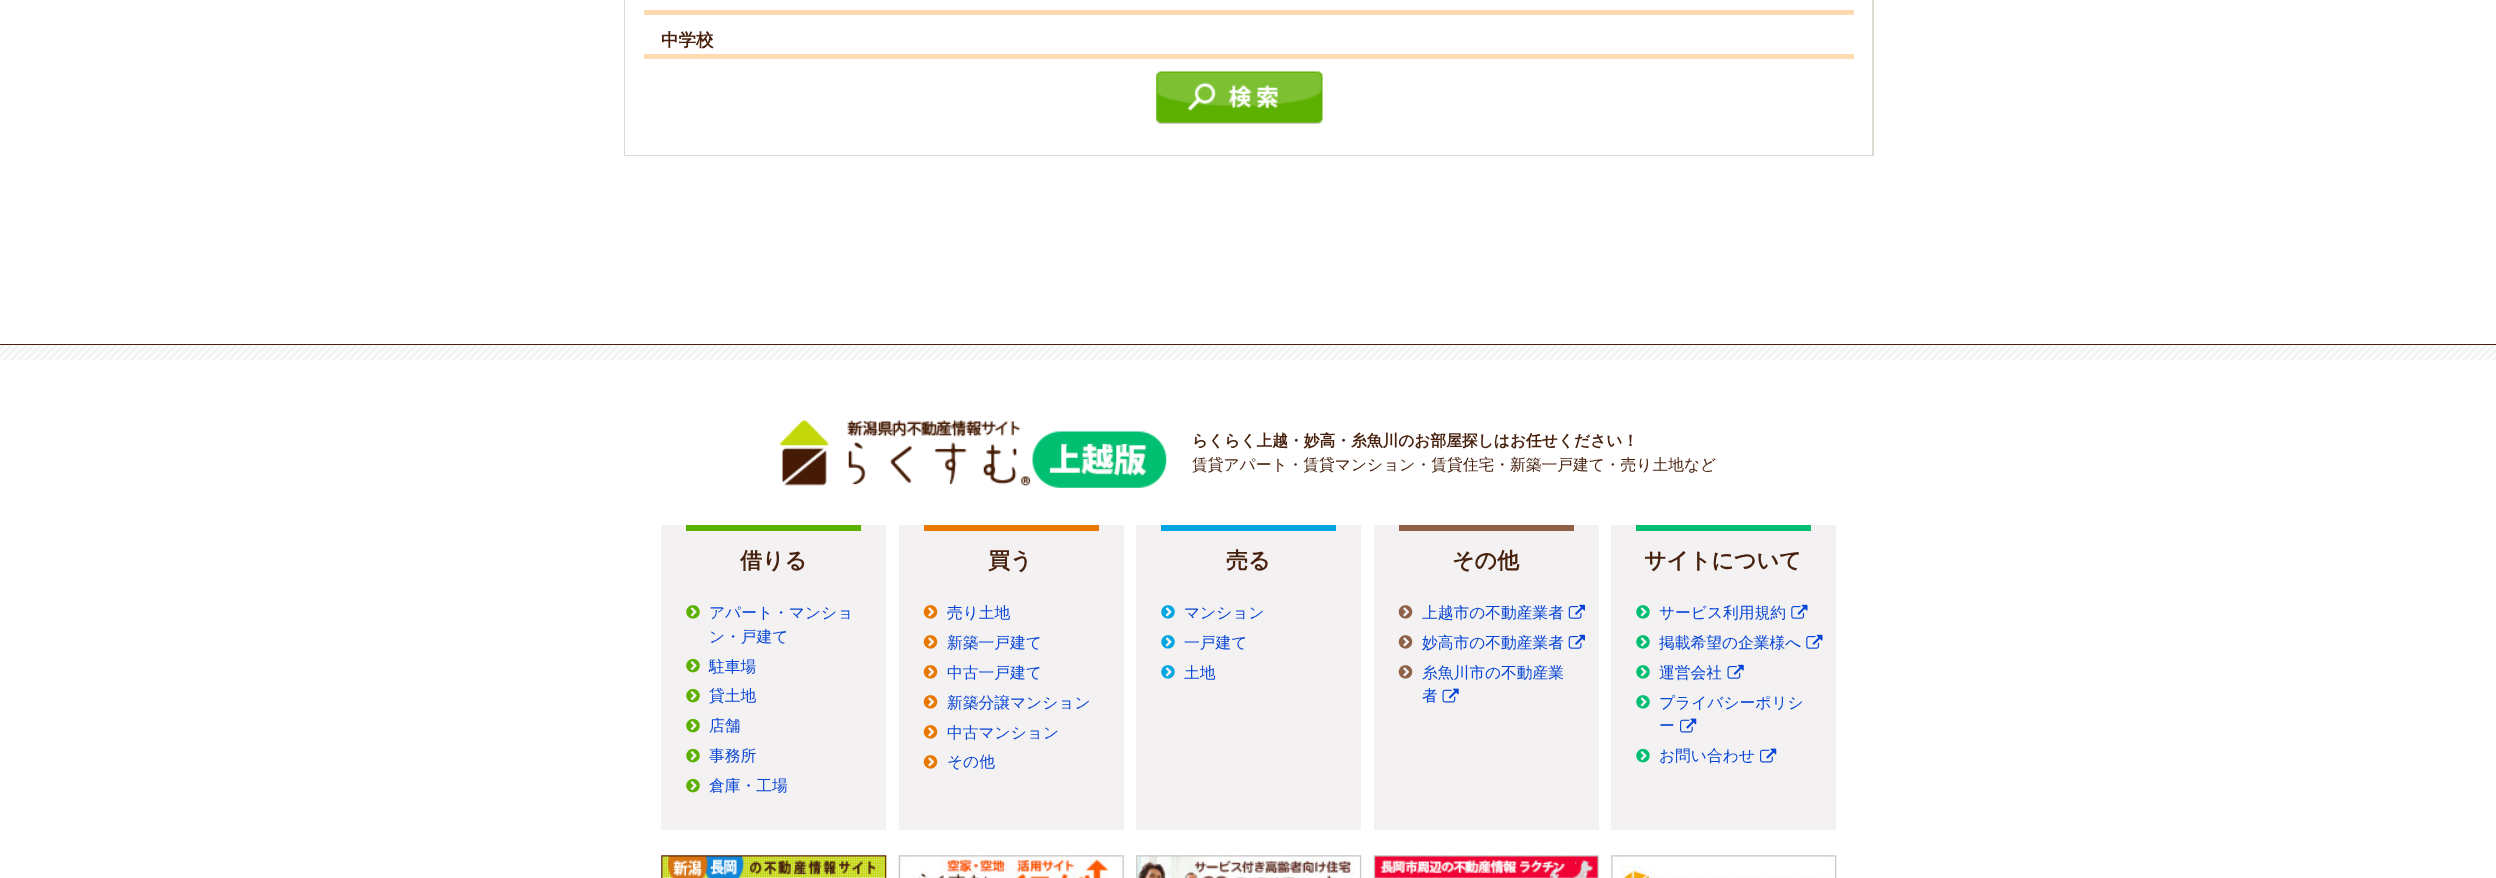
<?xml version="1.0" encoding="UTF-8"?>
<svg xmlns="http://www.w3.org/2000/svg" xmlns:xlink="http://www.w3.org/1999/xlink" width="2496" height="878">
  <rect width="100%" height="100%" fill="#ffffff" />
  <path d="M 1874 -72 v 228 l -2 -1 v -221 z" fill="#dcdad2" />
  <rect x="624" y="155" width="1250" height="1" fill="#dcdad2" />
  <path d="M 624 156 v -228 l 1 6 v 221 z" fill="#dcdad2" />
  <rect x="644" y="10" width="1210" height="5" fill="#fedab1" />
  <rect x="644" y="54" width="1210" height="5" fill="#fedab1" />
  <image x="1156" y="71" width="167" height="53" xlink:href="image1.png" />
  <image x="0" y="345" width="2496" height="16" xlink:href="image2.png" />
  <rect y="344" width="2496" height="1" fill="#47210d" />
  <image x="780" y="420" width="387" height="68" xlink:href="image3.png" />
  <rect x="661" y="525" width="225" height="305" fill="#f3f1f1" />
  <rect x="686" y="525" width="175" height="6" fill="#5cb100" />
  <image x="686" y="605" width="14" height="14" xlink:href="image4.png" />
  <image x="686" y="658" width="14" height="15" xlink:href="image5.png" />
  <image x="686" y="688" width="14" height="15" xlink:href="image5.png" />
  <image x="686" y="718" width="14" height="15" xlink:href="image5.png" />
  <image x="686" y="748" width="14" height="15" xlink:href="image5.png" />
  <image x="686" y="778" width="14" height="15" xlink:href="image5.png" />
  <rect x="899" y="525" width="225" height="305" fill="#f3f1f1" />
  <rect x="924" y="525" width="175" height="6" fill="#e87800" />
  <image x="923" y="605" width="15" height="14" xlink:href="image6.png" />
  <image x="923" y="635" width="15" height="14" xlink:href="image6.png" />
  <image x="923" y="665" width="15" height="14" xlink:href="image6.png" />
  <image x="923" y="695" width="15" height="14" xlink:href="image6.png" />
  <image x="923" y="725" width="15" height="14" xlink:href="image6.png" />
  <image x="923" y="755" width="15" height="14" xlink:href="image6.png" />
  <rect x="1136" y="525" width="225" height="305" fill="#f3f1f1" />
  <rect x="1161" y="525" width="175" height="6" fill="#00a5e2" />
  <image x="1161" y="605" width="14" height="14" xlink:href="image7.png" />
  <image x="1161" y="635" width="14" height="14" xlink:href="image7.png" />
  <image x="1161" y="665" width="14" height="14" xlink:href="image7.png" />
  <rect x="1374" y="525" width="225" height="305" fill="#f3f1f1" />
  <rect x="1399" y="525" width="175" height="6" fill="#8f6149" />
  <image x="1398" y="605" width="15" height="14" xlink:href="image8.png" />
  <image x="1568" y="604" width="17" height="15" xlink:href="image9.png" />
  <image x="1398" y="635" width="15" height="14" xlink:href="image8.png" />
  <image x="1568" y="634" width="17" height="15" xlink:href="image9.png" />
  <image x="1398" y="665" width="15" height="14" xlink:href="image8.png" />
  <image x="1442" y="688" width="17" height="15" xlink:href="image10.png" />
  <rect x="1611" y="525" width="225" height="305" fill="#f3f1f1" />
  <rect x="1636" y="525" width="175" height="6" fill="#00be70" />
  <image x="1636" y="605" width="14" height="14" xlink:href="image11.png" />
  <image x="1791" y="604" width="17" height="15" xlink:href="image12.png" />
  <image x="1636" y="635" width="14" height="14" xlink:href="image11.png" />
  <image x="1806" y="634" width="17" height="15" xlink:href="image12.png" />
  <image x="1636" y="665" width="14" height="14" xlink:href="image11.png" />
  <image x="1727" y="664" width="17" height="15" xlink:href="image13.png" />
  <image x="1636" y="695" width="14" height="14" xlink:href="image11.png" />
  <image x="1680" y="718" width="17" height="15" xlink:href="image14.png" />
  <image x="1636" y="748" width="14" height="15" xlink:href="image15.png" />
  <image x="1760" y="748" width="17" height="15" xlink:href="image14.png" />
  <image x="661" y="855" width="226" height="23" xlink:href="image16.png" />
  <image x="898" y="855" width="226" height="23" xlink:href="image17.png" />
  <image x="1136" y="855" width="226" height="23" xlink:href="image18.png" />
  <image x="1373" y="855" width="226" height="23" xlink:href="image19.png" />
  <image x="1611" y="855" width="226" height="23" xlink:href="image20.png" />
  <text x="661" y="46" style="font-family: WenQuanYi Zen Hei; font-size: 17.5px; font-weight: bold; fill: #47210d">中学校</text>
  <text x="1192" y="446" style="font-family: WenQuanYi Zen Hei; font-size: 15.75px; font-weight: bold; fill: #47210d">らくらく上越・妙高・糸魚川のお部屋探しはお任せください！</text>
  <text x="1192" y="470" style="font-family: WenQuanYi Zen Hei; font-size: 15.75px; font-weight: 500; fill: #47210d">賃貸アパート・賃貸マンション・賃貸住宅・新築一戸建て・売り土地など</text>
  <text x="740" y="568" style="font-family: WenQuanYi Zen Hei; font-size: 22px; font-weight: bold; fill: #47210d">借りる</text>
  <text x="709" y="618" style="font-family: WenQuanYi Zen Hei; font-size: 15.75px; font-weight: 500; fill: #0745d6">アパート・マンショ</text>
  <text x="709" y="642" style="font-family: WenQuanYi Zen Hei; font-size: 15.75px; font-weight: 500; fill: #0745d6">ン・戸建て</text>
  <text x="709" y="672" style="font-family: WenQuanYi Zen Hei; font-size: 15.75px; font-weight: 500; fill: #0745d6">駐車場</text>
  <text x="709" y="701" style="font-family: WenQuanYi Zen Hei; font-size: 15.75px; font-weight: 500; fill: #0745d6">貸土地</text>
  <text x="709" y="731" style="font-family: WenQuanYi Zen Hei; font-size: 15.75px; font-weight: 500; fill: #0745d6">店舗</text>
  <text x="709" y="761" style="font-family: WenQuanYi Zen Hei; font-size: 15.75px; font-weight: 500; fill: #0745d6">事務所</text>
  <text x="709" y="791" style="font-family: WenQuanYi Zen Hei; font-size: 15.75px; font-weight: 500; fill: #0745d6">倉庫・工場</text>
  <text x="988" y="568" style="font-family: WenQuanYi Zen Hei; font-size: 22px; font-weight: bold; fill: #47210d">買う</text>
  <text x="947" y="618" style="font-family: WenQuanYi Zen Hei; font-size: 15.75px; font-weight: 500; fill: #0745d6">売り土地</text>
  <text x="947" y="648" style="font-family: WenQuanYi Zen Hei; font-size: 15.75px; font-weight: 500; fill: #0745d6">新築一戸建て</text>
  <text x="947" y="678" style="font-family: WenQuanYi Zen Hei; font-size: 15.75px; font-weight: 500; fill: #0745d6">中古一戸建て</text>
  <text x="947" y="708" style="font-family: WenQuanYi Zen Hei; font-size: 15.75px; font-weight: 500; fill: #0745d6">新築分譲マンション</text>
  <text x="947" y="738" style="font-family: WenQuanYi Zen Hei; font-size: 15.75px; font-weight: 500; fill: #0745d6">中古マンション</text>
  <text x="947" y="767" style="font-family: WenQuanYi Zen Hei; font-size: 15.75px; font-weight: 500; fill: #0745d6">その他</text>
  <text x="1226" y="568" style="font-family: WenQuanYi Zen Hei; font-size: 22px; font-weight: bold; fill: #47210d">売る</text>
  <text x="1184" y="618" style="font-family: WenQuanYi Zen Hei; font-size: 15.75px; font-weight: 500; fill: #0745d6">マンション</text>
  <text x="1184" y="648" style="font-family: WenQuanYi Zen Hei; font-size: 15.75px; font-weight: 500; fill: #0745d6">一戸建て</text>
  <text x="1184" y="678" style="font-family: WenQuanYi Zen Hei; font-size: 15.75px; font-weight: 500; fill: #0745d6">土地</text>
  <text x="1452" y="568" style="font-family: WenQuanYi Zen Hei; font-size: 22px; font-weight: bold; fill: #47210d">その他</text>
  <text x="1422" y="618" style="font-family: WenQuanYi Zen Hei; font-size: 15.75px; font-weight: 500; fill: #0745d6">上越市の不動産業者</text>
  <text x="1422" y="648" style="font-family: WenQuanYi Zen Hei; font-size: 15.75px; font-weight: 500; fill: #0745d6">妙高市の不動産業者</text>
  <text x="1422" y="678" style="font-family: WenQuanYi Zen Hei; font-size: 15.75px; font-weight: 500; fill: #0745d6">糸魚川市の不動産業</text>
  <text x="1422" y="701" style="font-family: WenQuanYi Zen Hei; font-size: 15.75px; font-weight: 500; fill: #0745d6">者</text>
  <text x="1644" y="568" style="font-family: WenQuanYi Zen Hei; font-size: 22px; font-weight: bold; fill: #47210d">サイトについて</text>
  <text x="1659" y="618" style="font-family: WenQuanYi Zen Hei; font-size: 15.75px; font-weight: 500; fill: #0745d6">サービス利用規約</text>
  <text x="1659" y="648" style="font-family: WenQuanYi Zen Hei; font-size: 15.75px; font-weight: 500; fill: #0745d6">掲載希望の企業様へ</text>
  <text x="1659" y="678" style="font-family: WenQuanYi Zen Hei; font-size: 15.75px; font-weight: 500; fill: #0745d6">運営会社</text>
  <text x="1659" y="708" style="font-family: WenQuanYi Zen Hei; font-size: 15.75px; font-weight: 500; fill: #0745d6">プライバシーポリシ</text>
  <text x="1659" y="731" style="font-family: WenQuanYi Zen Hei; font-size: 15.75px; font-weight: 500; fill: #0745d6">ー</text>
  <text x="1659" y="761" style="font-family: WenQuanYi Zen Hei; font-size: 15.75px; font-weight: 500; fill: #0745d6">お問い合わせ</text>
</svg>
